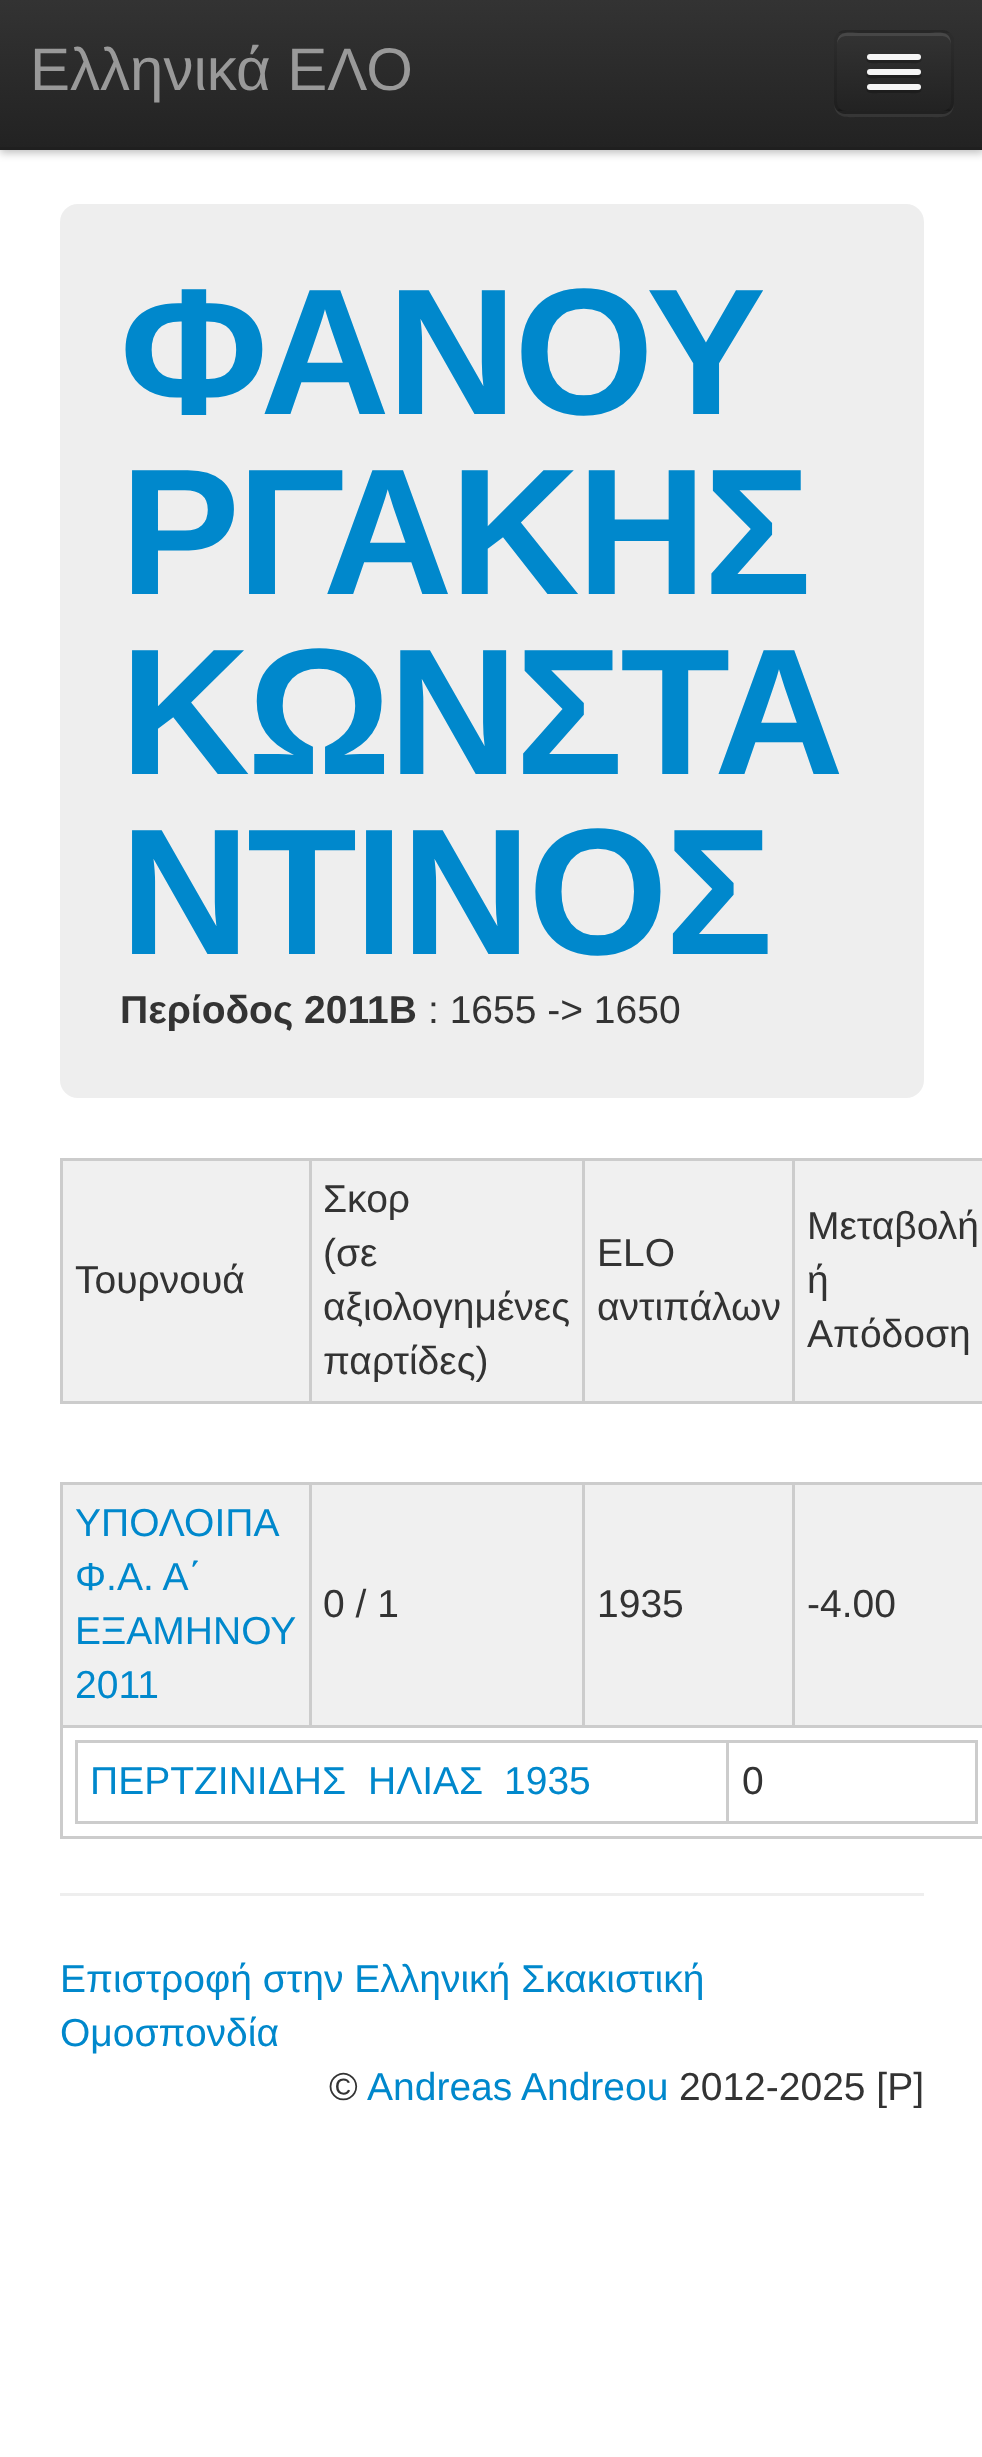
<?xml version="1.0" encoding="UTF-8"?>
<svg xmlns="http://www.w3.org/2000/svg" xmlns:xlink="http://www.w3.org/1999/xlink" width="982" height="2457">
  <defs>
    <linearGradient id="g1" gradientUnits="userSpaceOnUse" x1="492" y1="0" x2="492" y2="150"><stop offset="0" stop-color="#333333" /><stop offset="1" stop-color="#222222" /></linearGradient>
    <clipPath id="clip1"><rect x="834" y="30" width="120" height="84" rx="12" /></clipPath>
    <linearGradient id="g2" gradientUnits="userSpaceOnUse" x1="894" y1="33" x2="894" y2="111"><stop offset="0" stop-color="#333333" /><stop offset="1" stop-color="#222222" /></linearGradient>
  </defs>
  <rect width="100%" height="100%" fill="#ffffff" />
  <rect y="3" width="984" height="150" fill="#000000" fill-opacity="0.25" filter="blur(4.5px)" />
  <rect width="982" height="147" fill="url(#g1)" />
  <rect y="147" width="982" height="3" fill="#1f1f1f" />
  <path d="M 834 102 c 0 18 14 15 28 15 h 64 c 14 0 28 3 28 -15 c 0 7 -5 12 -12 12 h -96 c -7 0 -12 -5 -12 -12 z" fill="#363636" />
  <rect x="834" y="30" width="120" height="84" rx="12" fill="#2c2c2c" />
  <g clip-path="url(#clip1)">
    <rect x="834" y="33" width="120" height="78" fill="url(#g2)" />
  </g>
  <path d="M 846 36 h 96 c 5 0 9 4 9 9 c 0 -16 -12 -12 -25 -12 h -64 c -13 0 -25 -4 -25 12 c 0 -5 4 -9 9 -9 z" fill="#474747" />
  <path d="M 949.5 109.5 c -2 2 -4.5 3 -7.5 3 h -96 c -3 0 -5.5 -1 -7.5 -3" fill="none" stroke="#000000" stroke-opacity="0.25" stroke-width="3" />
  <path d="M 838.5 109.5 c -2 -2 -3 -4.5 -3 -7.5 v -60 c 0 -3 1 -5.5 3 -7.5 c 2 -2 4.5 -3 7.5 -3 h 96 c 3 0 5.5 1 7.5 3 c 2 2 3 4.5 3 7.5 v 60 c 0 3 -1 5.5 -3 7.5" fill="none" stroke="#000000" stroke-opacity="0.1" stroke-width="3" />
  <path d="M 867 58 c -3 7 11 5 11 5 h 32 c 0 0 14 2 11 -5 c -1 1 -2 2 -3 2 h -48 c -1 0 -2 -1 -3 -2 z" fill="#222222" />
  <rect x="867" y="54" width="54" height="6" rx="3" fill="#f5f5f5" />
  <path d="M 867 74 c -3 6 11 4 11 4 h 32 c 0 0 14 2 11 -4 c -1 0 -2 1 -3 1 h -48 c -1 0 -2 -1 -3 -1 z" fill="#1f1f1f" />
  <rect x="867" y="69" width="54" height="6" rx="3" fill="#f5f5f5" />
  <path d="M 867 88 c -3 7 11 5 11 5 h 32 c 0 0 14 2 11 -5 c -1 1 -2 2 -3 2 h -48 c -1 0 -2 -1 -3 -2 z" fill="#1d1d1d" />
  <rect x="867" y="84" width="54" height="6" rx="3" fill="#f5f5f5" />
  <rect x="60" y="204" width="864" height="894" rx="18" fill="#eeeeee" />
  <rect x="63" y="1161" width="919" height="240" fill="#f0f0f0" />
  <rect x="792" y="1158" width="190" height="3" fill="#cccccc" />
  <rect x="792" y="1401" width="190" height="3" fill="#cccccc" />
  <rect x="792" y="1158" width="3" height="246" fill="#cccccc" />
  <rect x="582" y="1158" width="213" height="3" fill="#cccccc" />
  <rect x="582" y="1401" width="213" height="3" fill="#cccccc" />
  <rect x="582" y="1158" width="3" height="246" fill="#cccccc" />
  <rect x="309" y="1158" width="276" height="3" fill="#cccccc" />
  <rect x="309" y="1401" width="276" height="3" fill="#cccccc" />
  <rect x="309" y="1158" width="3" height="246" fill="#cccccc" />
  <rect x="60" y="1158" width="252" height="3" fill="#cccccc" />
  <rect x="60" y="1401" width="252" height="3" fill="#cccccc" />
  <rect x="60" y="1158" width="3" height="246" fill="#cccccc" />
  <rect x="63" y="1485" width="919" height="240" fill="#f0f0f0" />
  <rect x="792" y="1482" width="190" height="3" fill="#cccccc" />
  <rect x="60" y="1725" width="922" height="3" fill="#cccccc" />
  <rect x="792" y="1482" width="3" height="246" fill="#cccccc" />
  <rect x="582" y="1482" width="213" height="3" fill="#cccccc" />
  <rect x="582" y="1482" width="3" height="246" fill="#cccccc" />
  <rect x="309" y="1482" width="276" height="3" fill="#cccccc" />
  <rect x="309" y="1482" width="3" height="246" fill="#cccccc" />
  <rect x="60" y="1482" width="252" height="3" fill="#cccccc" />
  <rect x="60" y="1836" width="922" height="3" fill="#cccccc" />
  <rect x="60" y="1725" width="3" height="114" fill="#cccccc" />
  <rect x="60" y="1482" width="3" height="246" fill="#cccccc" />
  <rect x="726" y="1740" width="252" height="3" fill="#cccccc" />
  <rect x="975" y="1740" width="3" height="84" fill="#cccccc" />
  <rect x="726" y="1821" width="252" height="3" fill="#cccccc" />
  <rect x="726" y="1740" width="3" height="84" fill="#cccccc" />
  <rect x="75" y="1740" width="654" height="3" fill="#cccccc" />
  <rect x="75" y="1821" width="654" height="3" fill="#cccccc" />
  <rect x="75" y="1740" width="3" height="84" fill="#cccccc" />
  <rect x="60" y="1893" width="864" height="3" fill="#eeeeee" />
  <text x="30" y="90" style="font-family: Liberation Sans; font-size: 60px; fill: #999999">Ελληνικά ΕΛΟ</text>
  <text x="120" y="414" style="font-family: Liberation Sans; font-size: 180px; font-weight: bold; letter-spacing: -3px; fill: #0088cc">ΦΑΝΟΥ</text>
  <text x="120" y="594" style="font-family: Liberation Sans; font-size: 180px; font-weight: bold; letter-spacing: -3px; fill: #0088cc">ΡΓΑΚΗΣ</text>
  <text x="120" y="774" style="font-family: Liberation Sans; font-size: 180px; font-weight: bold; letter-spacing: -3px; fill: #0088cc">ΚΩΝΣΤΑ</text>
  <text x="120" y="954" style="font-family: Liberation Sans; font-size: 180px; font-weight: bold; letter-spacing: -3px; fill: #0088cc">ΝΤΙΝΟΣ</text>
  <text x="120" y="1023" style="font-family: Liberation Sans; font-size: 39px; font-weight: bold; fill: #333333">Περίοδος 2011B</text>
  <text x="428" y="1023" style="font-family: Liberation Sans; font-size: 39px; fill: #333333">: 1655 -&gt; 1650</text>
  <text x="75" y="1293" style="font-family: Liberation Sans; font-size: 39px; fill: #333333">Τουρνουά</text>
  <text x="323" y="1212" style="font-family: Liberation Sans; font-size: 39px; fill: #333333">Σκορ</text>
  <text x="323" y="1266" style="font-family: Liberation Sans; font-size: 39px; fill: #333333">(σε</text>
  <text x="323" y="1320" style="font-family: Liberation Sans; font-size: 39px; fill: #333333">αξιολογημένες</text>
  <text x="323" y="1374" style="font-family: Liberation Sans; font-size: 39px; fill: #333333">παρτίδες)</text>
  <text x="597" y="1266" style="font-family: Liberation Sans; font-size: 39px; fill: #333333">ELO</text>
  <text x="597" y="1320" style="font-family: Liberation Sans; font-size: 39px; fill: #333333">αντιπάλων</text>
  <text x="807" y="1239" style="font-family: Liberation Sans; font-size: 39px; fill: #333333">Μεταβολή</text>
  <text x="807" y="1293" style="font-family: Liberation Sans; font-size: 39px; fill: #333333">ή</text>
  <text x="807" y="1347" style="font-family: Liberation Sans; font-size: 39px; fill: #333333">Απόδοση</text>
  <text x="75" y="1536" style="font-family: Liberation Sans; font-size: 39px; fill: #0088cc">ΥΠΟΛΟΙΠΑ</text>
  <text x="75" y="1590" style="font-family: Liberation Sans; font-size: 39px; fill: #0088cc">Φ.Α. Α΄</text>
  <text x="75" y="1644" style="font-family: Liberation Sans; font-size: 39px; fill: #0088cc">ΕΞΑΜΗΝΟΥ</text>
  <text x="75" y="1698" style="font-family: Liberation Sans; font-size: 39px; fill: #0088cc">2011</text>
  <text x="323" y="1617" style="font-family: Liberation Sans; font-size: 39px; fill: #333333">0 / 1</text>
  <text x="597" y="1617" style="font-family: Liberation Sans; font-size: 39px; fill: #333333">1935</text>
  <text x="807" y="1617" style="font-family: Liberation Sans; font-size: 39px; fill: #333333">-4.00</text>
  <text x="90" y="1794" style="font-family: Liberation Sans; font-size: 39px; fill: #0088cc">ΠΕΡΤΖΙΝΙΔΗΣ</text>
  <text x="368" y="1794" style="font-family: Liberation Sans; font-size: 39px; fill: #0088cc">ΗΛΙΑΣ</text>
  <text x="504" y="1794" style="font-family: Liberation Sans; font-size: 39px; fill: #0088cc">1935</text>
  <text x="742" y="1794" style="font-family: Liberation Sans; font-size: 39px; fill: #333333">0</text>
  <text x="60" y="1992" style="font-family: Liberation Sans; font-size: 39px; fill: #0088cc">Επιστροφή στην Ελληνική Σκακιστική</text>
  <text x="60" y="2046" style="font-family: Liberation Sans; font-size: 39px; fill: #0088cc">Ομοσπονδία</text>
  <text x="329" y="2100" style="font-family: Liberation Sans; font-size: 39px; fill: #333333">©</text>
  <text x="367" y="2100" style="font-family: Liberation Sans; font-size: 39px; fill: #0088cc">Andreas Andreou</text>
  <text x="679" y="2100" style="font-family: Liberation Sans; font-size: 39px; fill: #333333">2012-2025 [P]</text>
</svg>
